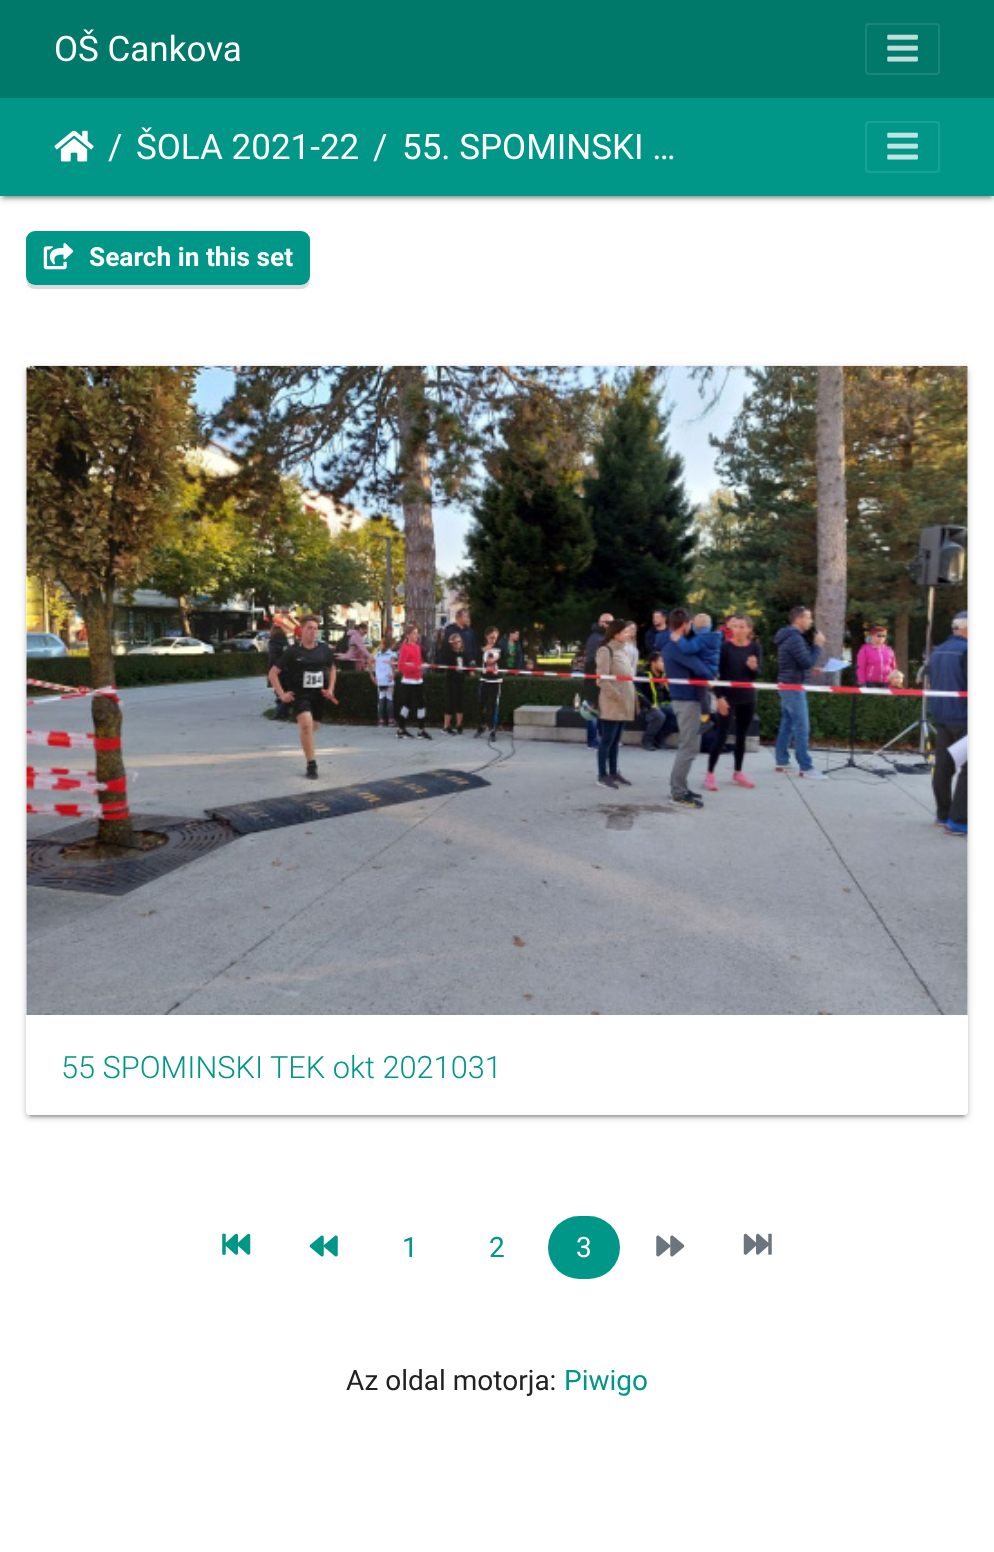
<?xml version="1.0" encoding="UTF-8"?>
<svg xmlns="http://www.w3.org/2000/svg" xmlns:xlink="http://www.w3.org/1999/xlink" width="994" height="1552">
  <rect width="100%" height="100%" fill="#ffffff" />
  <rect y="100" width="994" height="98" fill="#000000" fill-opacity="0.12" filter="blur(4.5px)" />
  <rect y="102" width="994" height="98" fill="#000000" fill-opacity="0.14" filter="blur(2px)" />
  <rect width="994" height="98" fill="#00796b" />
  <rect x="866" y="24" width="73" height="50" rx="3" fill="none" stroke="#1a867a" stroke-width="2" />
  <image x="887" y="34" width="31" height="28" xlink:href="image1.png" />
  <rect x="4" y="107" width="987" height="91" fill="#000000" fill-opacity="0.2" filter="blur(1px)" />
  <rect y="98" width="994" height="98" fill="#009688" />
  <image x="54" y="130" width="40" height="32" xlink:href="image2.png" />
  <rect x="866" y="122" width="73" height="50" rx="3" fill="none" stroke="#1aa194" stroke-width="2" />
  <image x="887" y="132" width="31" height="28" xlink:href="image3.png" />
  <path d="M 26 242 v 26 c 0 7 -2 21 9 21 h 266 c 11 0 9 -14 9 -21 v -26 v 34 c 0 5 -4 9 -9 9 h -266 c -5 0 -9 -4 -9 -9 z" fill="#dbdbdb" />
  <rect x="26" y="231" width="284" height="54" rx="9" fill="#009688" />
  <image x="43" y="243" width="31" height="27" xlink:href="image4.png" />
  <rect x="26" y="368" width="942" height="749" rx="4" fill="#000000" fill-opacity="0.12" filter="blur(4.5px)" />
  <rect x="30" y="375" width="934" height="742" fill="#000000" fill-opacity="0.2" filter="blur(1px)" />
  <rect x="26" y="369" width="942" height="749" rx="4" fill="#000000" fill-opacity="0.14" filter="blur(2px)" />
  <rect x="26" y="366" width="942" height="749" rx="4" fill="#ffffff" />
  <image x="26" y="365" width="942" height="650" xlink:href="image5.png" />
  <image x="222" y="1233" width="29" height="22" xlink:href="image6.png" />
  <image x="309" y="1235" width="29" height="22" xlink:href="image7.png" />
  <rect x="548" y="1216" width="72" height="63" rx="31.5" fill="#009688" />
  <image x="656" y="1235" width="29" height="22" xlink:href="image8.png" />
  <image x="743" y="1233" width="29" height="22" xlink:href="image9.png" />
  <text x="54" y="61" style="font-family: Roboto; font-size: 35px; fill: #ffffff">OŠ Cankova</text>
  <text x="108" y="159" style="font-family: Roboto; font-size: 35px; fill: #ffffff">/</text>
  <text x="136" y="159" style="font-family: Roboto; font-size: 35px; fill: #ffffff">ŠOLA 2021-22</text>
  <text x="373" y="159" style="font-family: Roboto; font-size: 35px; fill: #ffffff">/</text>
  <text x="402" y="159" style="font-family: Roboto; font-size: 35px; fill: #ffffff">55. SPOMINSKI …</text>
  <text x="89" y="266" style="font-family: Roboto; font-size: 26.25px; font-weight: bold; fill: #ffffff">Search in this set</text>
  <text x="61" y="1078" style="font-family: Roboto; font-size: 30.75px; font-weight: 300; fill: #009688">55 SPOMINSKI TEK okt 2021031</text>
  <text x="402" y="1257" style="font-family: Roboto; font-size: 28px; fill: #009688">1</text>
  <text x="489" y="1257" style="font-family: Roboto; font-size: 28px; fill: #009688">2</text>
  <text x="576" y="1257" style="font-family: Roboto; font-size: 28px; fill: #ffffff">3</text>
  <text x="346" y="1390" style="font-family: Roboto; font-size: 28px; fill: #212121">Az oldal motorja:</text>
  <text x="564" y="1390" style="font-family: Roboto; font-size: 28px; fill: #009688">Piwigo</text>
</svg>
